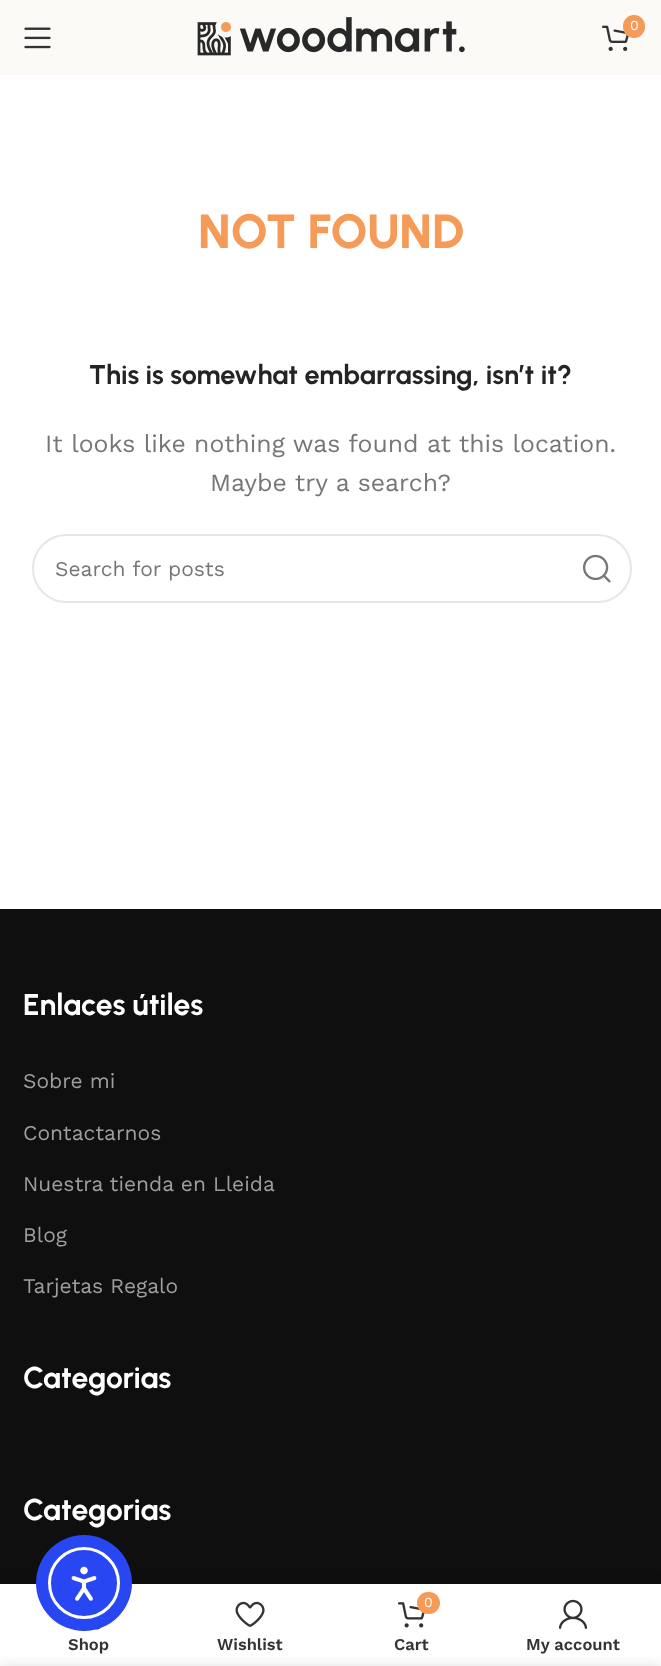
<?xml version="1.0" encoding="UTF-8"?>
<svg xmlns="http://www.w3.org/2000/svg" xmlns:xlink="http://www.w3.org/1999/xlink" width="661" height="1666">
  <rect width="100%" height="100%" fill="#ffffff" />
  <rect width="661" height="75" fill="#fbfaf7" />
  <image x="197" y="17" width="268" height="39" xlink:href="image1.png" />
  <image x="602" y="25" width="27" height="26" xlink:href="image2.png" />
  <rect x="623" y="15" width="22" height="23" rx="11" fill="#f59a57" />
  <image x="24" y="27" width="27" height="22" xlink:href="image3.png" />
  <rect x="33" y="535" width="598" height="67" rx="33.5" fill="none" stroke="#e6e6e6" stroke-width="2" />
  <image x="582" y="554" width="29" height="29" xlink:href="image4.png" />
  <rect y="909" width="661" height="675" fill="#0f0f0f" />
  <rect y="1584" width="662" height="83" fill="#000000" fill-opacity="0.12" filter="blur(7px)" />
  <rect y="1584" width="661" height="82" fill="#ffffff" />
  <image x="94" y="1627" width="7" height="3" xlink:href="image6.png" />
  <circle cx="84" cy="1583" r="48" fill="#2847f3" />
  <circle cx="84" cy="1583" r="34.5" fill="none" stroke="#ffffff" stroke-width="3" />
  <image x="71" y="1566" width="26" height="35" xlink:href="image5.png" />
  <image x="235" y="1601" width="30" height="26" xlink:href="image7.png" />
  <image x="398" y="1602" width="27" height="26" xlink:href="image8.png" />
  <rect x="417" y="1592" width="23" height="22" rx="11" fill="#f59a57" />
  <image x="558" y="1599" width="30" height="30" xlink:href="image9.png" />
  <rect y="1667" width="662" height="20" fill="#000000" fill-opacity="0.14" filter="blur(7px)" />
  <text x="630" y="30" style="font-family: Work Sans; font-size: 14px; fill: #ffffff">0</text>
  <text x="198" y="248" style="font-family: Urbanist; font-size: 48px; font-weight: 800; fill: #f59a57">NOT FOUND</text>
  <text x="89" y="384" style="font-family: Urbanist; font-size: 27px; font-weight: bold; fill: #242424">This is somewhat embarrassing, isn’t it?</text>
  <text x="45" y="452" style="font-family: Work Sans; font-size: 24.75px; fill: #767676">It looks like nothing was found at this location.</text>
  <text x="210" y="491" style="font-family: Work Sans; font-size: 24.75px; fill: #767676">Maybe try a search?</text>
  <text x="55" y="576" style="font-family: Work Sans; font-size: 21px; fill: #767676">Search for posts</text>
  <text x="23" y="1015" style="font-family: Urbanist; font-size: 30px; font-weight: bold; fill: #ffffff">Enlaces útiles</text>
  <text x="23" y="1088" style="font-family: Work Sans; font-size: 21px; fill: #9f9f9f">Sobre mi</text>
  <text x="23" y="1140" style="font-family: Work Sans; font-size: 21px; fill: #9f9f9f">Contactarnos</text>
  <text x="23" y="1191" style="font-family: Work Sans; font-size: 21px; fill: #9f9f9f">Nuestra tienda en Lleida</text>
  <text x="23" y="1242" style="font-family: Work Sans; font-size: 21px; fill: #9f9f9f">Blog</text>
  <text x="23" y="1293" style="font-family: Work Sans; font-size: 21px; fill: #9f9f9f">Tarjetas Regalo</text>
  <text x="23" y="1388" style="font-family: Urbanist; font-size: 30px; font-weight: bold; fill: #ffffff">Categorias</text>
  <text x="23" y="1520" style="font-family: Urbanist; font-size: 30px; font-weight: bold; fill: #ffffff">Categorias</text>
  <text x="68" y="1650" style="font-family: Work Sans; font-size: 16.5px; font-weight: 600; fill: #333333">Shop</text>
  <text x="217" y="1650" style="font-family: Work Sans; font-size: 16.5px; font-weight: 600; fill: #333333">Wishlist</text>
  <text x="424" y="1607" style="font-family: Work Sans; font-size: 14px; fill: #ffffff">0</text>
  <text x="394" y="1650" style="font-family: Work Sans; font-size: 16.5px; font-weight: 600; fill: #333333">Cart</text>
  <text x="526" y="1650" style="font-family: Work Sans; font-size: 16.5px; font-weight: 600; fill: #333333">My account</text>
</svg>
